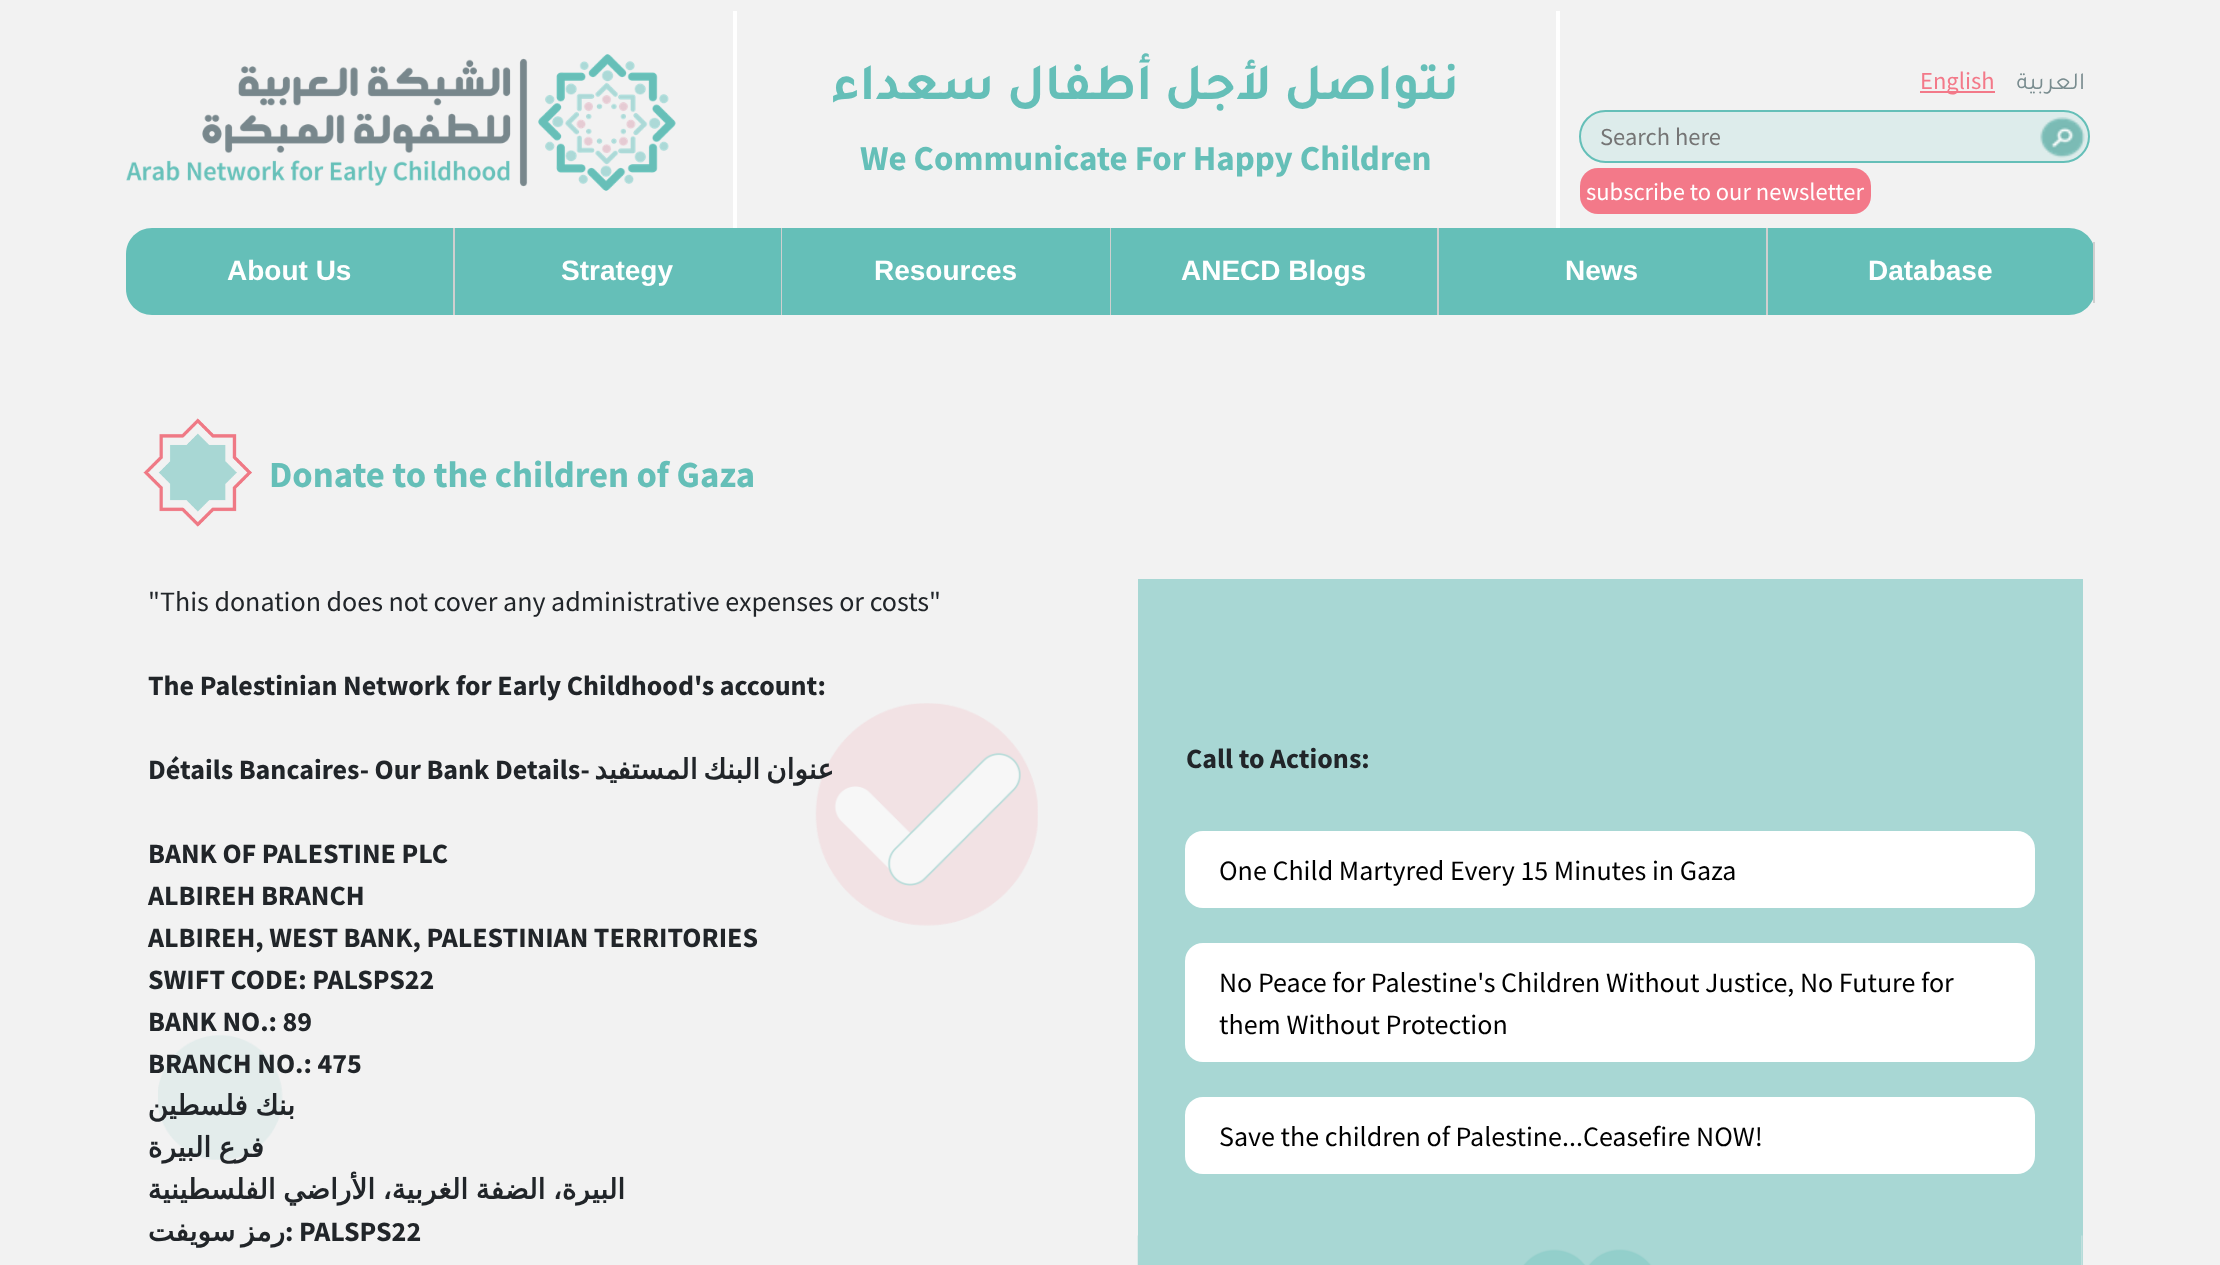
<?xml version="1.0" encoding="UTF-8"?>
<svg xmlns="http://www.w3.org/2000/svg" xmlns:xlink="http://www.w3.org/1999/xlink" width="2220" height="1265">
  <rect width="100%" height="100%" fill="#f2f2f2" />
  <rect x="733" y="11" width="4" height="217" fill="#ffffff" />
  <image x="126" y="54" width="550" height="137" xlink:href="image1.png" />
  <rect x="1556" y="11" width="4" height="217" fill="#ffffff" />
  <rect x="1920" y="91" width="75" height="2" fill="#f37989" />
  <rect x="1579" y="110" width="511" height="53" rx="26.5" fill="#ddeceb" />
  <image x="2040" y="117" width="45" height="41" xlink:href="image2.png" />
  <rect x="1580" y="111" width="509" height="51" rx="25.5" fill="none" stroke="#65bfb8" stroke-width="2" />
  <rect x="1580" y="168" width="291" height="46" rx="18" fill="#f37989" />
  <path d="M 152 228 h 303 v 87 h -303 c -14.5 0 -26 -11.5 -26 -26 v -35 c 0 -14.5 11.5 -26 26 -26 z" fill="#65bfb8" />
  <rect x="453" y="228" width="2" height="87" fill="#cfcfcf" />
  <rect x="455" y="228" width="326" height="87" fill="#65bfb8" />
  <rect x="781" y="228" width="1" height="87" fill="#cfcfcf" />
  <rect x="782" y="228" width="328" height="87" fill="#65bfb8" />
  <rect x="1110" y="228" width="1" height="87" fill="#cfcfcf" />
  <rect x="1111" y="228" width="326" height="87" fill="#65bfb8" />
  <rect x="1437" y="228" width="2" height="87" fill="#cfcfcf" />
  <rect x="1439" y="228" width="327" height="87" fill="#65bfb8" />
  <rect x="1766" y="228" width="2" height="87" fill="#cfcfcf" />
  <path d="M 1768 228 h 301 c 14.5 0 26 11.5 26 26 v 35 c 0 14.5 -11.5 26 -26 26 h -301 z" fill="#65bfb8" />
  <rect x="2093" y="242" width="2" height="61" fill="#cfcfcf" />
  <image x="143" y="418" width="109" height="109" xlink:href="image3.png" />
  <image x="158" y="703" width="880" height="457" xlink:href="image4.png" />
  <rect x="1138" y="579" width="945" height="686" fill="#a8d7d4" />
  <rect x="1185" y="831" width="850" height="77" rx="18" fill="#ffffff" />
  <rect x="1185" y="943" width="850" height="119" rx="18" fill="#ffffff" />
  <rect x="1185" y="1097" width="850" height="77" rx="18" fill="#ffffff" />
  <image x="1137" y="1235" width="946" height="30" xlink:href="image5.png" />
  <text x="1459" y="99" style="font-family: Tajawal; font-size: 52.2px; font-weight: bold; direction: rtl; fill: #65bfb8">نتواصل لأجل أطفال سعداء</text>
  <text x="860" y="170" style="font-family: Source Sans Pro; font-size: 35px; font-weight: bold; fill: #65bfb8">We Communicate For Happy Children</text>
  <text x="1920" y="89" style="font-family: Source Sans Pro; font-size: 24.5px; fill: #f37989">English</text>
  <text x="2085" y="89" style="font-family: Tajawal; font-size: 24.5px; direction: rtl; fill: #798c8f">العربية</text>
  <text x="1600" y="145" style="font-family: Source Sans Pro; font-size: 24.5px; fill: #757575">Search here</text>
  <text x="1586" y="200" style="font-family: Source Sans Pro; font-size: 24.5px; fill: #ffffff">subscribe to our newsletter</text>
  <text x="227" y="280" style="font-family: Liberation Sans; font-size: 28px; font-weight: bold; fill: #ffffff">About Us</text>
  <text x="561" y="280" style="font-family: Liberation Sans; font-size: 28px; font-weight: bold; fill: #ffffff">Strategy</text>
  <text x="874" y="280" style="font-family: Liberation Sans; font-size: 28px; font-weight: bold; fill: #ffffff">Resources</text>
  <text x="1181" y="280" style="font-family: Liberation Sans; font-size: 28px; font-weight: bold; fill: #ffffff">ANECD Blogs</text>
  <text x="1565" y="280" style="font-family: Liberation Sans; font-size: 28px; font-weight: bold; fill: #ffffff">News</text>
  <text x="1868" y="280" style="font-family: Liberation Sans; font-size: 28px; font-weight: bold; fill: #ffffff">Database</text>
  <text x="269" y="487" style="font-family: Source Sans Pro; font-size: 36.75px; font-weight: bold; fill: #65bfb8">Donate to the children of Gaza</text>
  <text x="148" y="611" style="font-family: Source Sans Pro; font-size: 28px; fill: #212529">"This donation does not cover any administrative expenses or costs"</text>
  <text x="148" y="695" style="font-family: Source Sans Pro; font-size: 28px; font-weight: bold; fill: #212529">The Palestinian Network for Early Childhood's account:</text>
  <text x="148" y="779" style="font-family: Source Sans Pro; font-size: 28px; font-weight: bold; fill: #212529">Détails Bancaires- Our Bank Details-</text>
  <text x="834" y="779" word-spacing="-3" style="font-family: DejaVu Sans; font-size: 28px; font-weight: bold; direction: rtl; fill: #212529">عنوان البنك المستفيد</text>
  <text x="148" y="863" style="font-family: Source Sans Pro; font-size: 28px; font-weight: bold; fill: #212529">BANK OF PALESTINE PLC</text>
  <text x="148" y="905" style="font-family: Source Sans Pro; font-size: 28px; font-weight: bold; fill: #212529">ALBIREH BRANCH</text>
  <text x="148" y="947" style="font-family: Source Sans Pro; font-size: 28px; font-weight: bold; fill: #212529">ALBIREH, WEST BANK, PALESTINIAN TERRITORIES</text>
  <text x="148" y="989" style="font-family: Source Sans Pro; font-size: 28px; font-weight: bold; fill: #212529">SWIFT CODE: PALSPS22</text>
  <text x="148" y="1031" style="font-family: Source Sans Pro; font-size: 28px; font-weight: bold; fill: #212529">BANK NO.: 89</text>
  <text x="148" y="1073" style="font-family: Source Sans Pro; font-size: 28px; font-weight: bold; fill: #212529">BRANCH NO.: 475</text>
  <text x="295" y="1115" word-spacing="-1.5" style="font-family: DejaVu Sans; font-size: 28px; font-weight: bold; direction: rtl; fill: #212529">بنك فلسطين</text>
  <text x="264" y="1157" word-spacing="-1.5" style="font-family: DejaVu Sans; font-size: 28px; font-weight: bold; direction: rtl; fill: #212529">فرع البيرة</text>
  <text x="625" y="1199" word-spacing="-1.5" style="font-family: DejaVu Sans; font-size: 28px; font-weight: bold; direction: rtl; fill: #212529">البيرة، الضفة الغربية، الأراضي الفلسطينية</text>
  <text x="285" y="1241" word-spacing="-3" style="font-family: DejaVu Sans; font-size: 28px; font-weight: bold; direction: rtl; fill: #212529">رمز سويفت</text>
  <text x="285" y="1241" style="font-family: Source Sans Pro; font-size: 28px; font-weight: bold; fill: #212529">: PALSPS22</text>
  <text x="1186" y="768" style="font-family: Source Sans Pro; font-size: 28px; font-weight: bold; fill: #212529">Call to Actions:</text>
  <text x="1219" y="880" style="font-family: Source Sans Pro; font-size: 28px; fill: #000000">One Child Martyred Every 15 Minutes in Gaza</text>
  <text x="1219" y="992" style="font-family: Source Sans Pro; font-size: 28px; fill: #000000">No Peace for Palestine's Children Without Justice, No Future for</text>
  <text x="1219" y="1034" style="font-family: Source Sans Pro; font-size: 28px; fill: #000000">them Without Protection</text>
  <text x="1219" y="1146" style="font-family: Source Sans Pro; font-size: 28px; fill: #000000">Save the children of Palestine...Ceasefire NOW!</text>
</svg>
